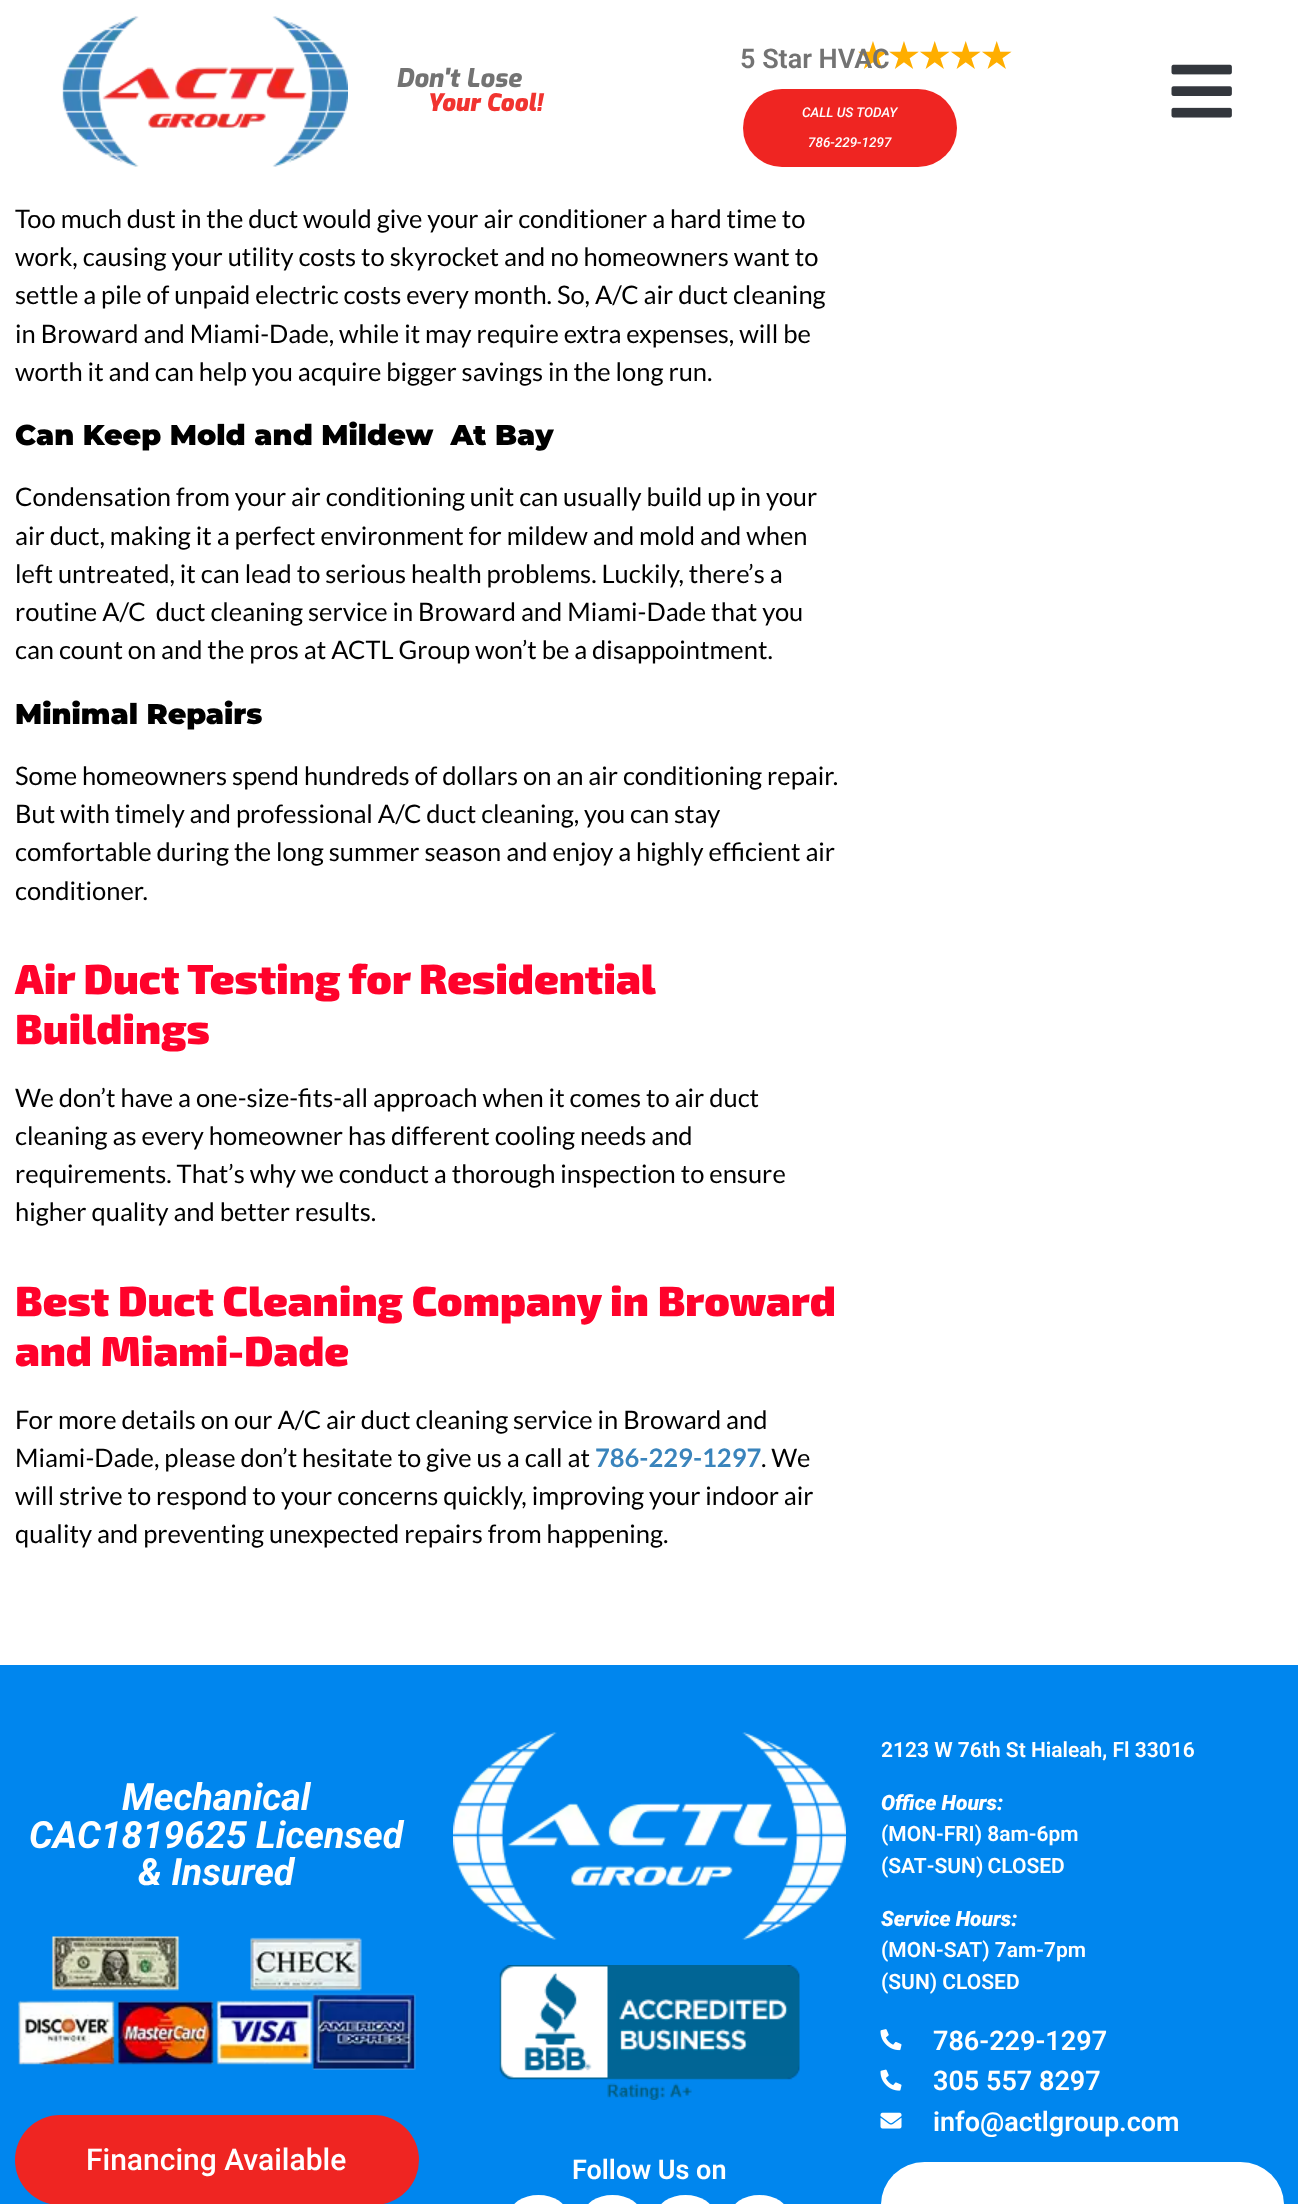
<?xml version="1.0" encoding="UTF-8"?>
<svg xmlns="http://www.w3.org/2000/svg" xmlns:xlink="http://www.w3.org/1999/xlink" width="1298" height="2204">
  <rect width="100%" height="100%" fill="#ffffff" />
  <image x="62" y="16" width="286" height="151" xlink:href="image1.png" />
  <rect x="743" y="89" width="214" height="78" rx="39" fill="#ef2522" />
  <image x="1171" y="64" width="61" height="54" xlink:href="image2.png" />
  <rect y="1665" width="1298" height="539" fill="#0086ee" />
  <image x="18" y="1936" width="398" height="134" xlink:href="image3.png" />
  <rect x="15" y="2115" width="404" height="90" rx="45" fill="#ef2522" />
  <image x="453" y="1732" width="393" height="208" xlink:href="image4.png" />
  <image x="499" y="1965" width="301" height="135" xlink:href="image5.png" />
  <rect x="510" y="2195" width="57" height="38" rx="28.5" fill="#ffffff" />
  <rect x="584" y="2195" width="57" height="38" rx="28.5" fill="#ffffff" />
  <rect x="657" y="2195" width="57" height="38" rx="28.5" fill="#ffffff" />
  <rect x="731" y="2195" width="57" height="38" rx="28.5" fill="#ffffff" />
  <image x="880" y="2029" width="22" height="22" xlink:href="image6.png" />
  <image x="880" y="2069" width="22" height="22" xlink:href="image7.png" />
  <image x="880" y="2112" width="22" height="17" xlink:href="image8.png" />
  <rect x="881" y="2162" width="403" height="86" rx="43.5" fill="#ffffff" />
  <text x="396" y="87" style="font-family: Exo; font-size: 25.5px; font-weight: 800; font-style: italic; fill: #737373">Don't Lose</text>
  <text x="427" y="111" style="font-family: Exo; font-size: 24px; font-weight: 900; font-style: italic; fill: #f13430">Your Cool!</text>
  <text x="857" y="68" style="font-family: DejaVu Sans; font-size: 34.5px; font-weight: bold; fill: #ffae00">★★★★★</text>
  <text x="740" y="68" style="font-family: Roboto; font-size: 27px; font-weight: 600; fill: #737373">5 Star HVAC</text>
  <text x="802" y="117" style="font-family: Roboto; font-size: 13.5px; font-weight: 500; font-style: italic; fill: #ffffff">CALL US TODAY</text>
  <text x="808" y="147" style="font-family: Roboto; font-size: 13.5px; font-weight: 500; font-style: italic; fill: #ffffff">786-229-1297</text>
  <text x="15" y="228" style="font-family: Lato; font-size: 25.5px; fill: #000000">Too much dust in the duct would give your air conditioner a hard time to</text>
  <text x="15" y="266" style="font-family: Lato; font-size: 25.5px; fill: #000000">work, causing your utility costs to skyrocket and no homeowners want to</text>
  <text x="15" y="304" style="font-family: Lato; font-size: 25.5px; fill: #000000">settle a pile of unpaid electric costs every month. So, A/C air duct cleaning</text>
  <text x="15" y="343" style="font-family: Lato; font-size: 25.5px; fill: #000000">in Broward and Miami-Dade, while it may require extra expenses, will be</text>
  <text x="15" y="381" style="font-family: Lato; font-size: 25.5px; fill: #000000">worth it and can help you acquire bigger savings in the long run.</text>
  <text x="15" y="445" style="font-family: Montserrat; font-size: 28.5px; font-weight: 900; fill: #000000" xml:space="preserve">Can Keep Mold and Mildew  At Bay</text>
  <text x="15" y="506" style="font-family: Lato; font-size: 25.5px; fill: #000000">Condensation from your air conditioning unit can usually build up in your</text>
  <text x="15" y="545" style="font-family: Lato; font-size: 25.5px; fill: #000000">air duct, making it a perfect environment for mildew and mold and when</text>
  <text x="15" y="583" style="font-family: Lato; font-size: 25.5px; fill: #000000">left untreated, it can lead to serious health problems. Luckily, there’s a</text>
  <text x="15" y="621" style="font-family: Lato; font-size: 25.5px; fill: #000000" xml:space="preserve">routine A/C  duct cleaning service in Broward and Miami-Dade that you</text>
  <text x="15" y="659" style="font-family: Lato; font-size: 25.5px; fill: #000000">can count on and the pros at ACTL Group won’t be a disappointment.</text>
  <text x="15" y="724" style="font-family: Montserrat; font-size: 28.5px; font-weight: 900; fill: #000000">Minimal Repairs</text>
  <text x="15" y="785" style="font-family: Lato; font-size: 25.5px; fill: #000000">Some homeowners spend hundreds of dollars on an air conditioning repair.</text>
  <text x="15" y="823" style="font-family: Lato; font-size: 25.5px; fill: #000000">But with timely and professional A/C duct cleaning, you can stay</text>
  <text x="15" y="861" style="font-family: Lato; font-size: 25.5px; fill: #000000">comfortable during the long summer season and enjoy a highly efficient air</text>
  <text x="15" y="900" style="font-family: Lato; font-size: 25.5px; fill: #000000">conditioner.</text>
  <text x="15" y="994" style="font-family: 'Exo 2'; font-size: 42px; font-weight: 900; fill: #ff022b">Air Duct Testing for Residential</text>
  <text x="15" y="1044" style="font-family: 'Exo 2'; font-size: 42px; font-weight: 900; fill: #ff022b">Buildings</text>
  <text x="15" y="1107" style="font-family: Lato; font-size: 25.5px; fill: #000000">We don’t have a one-size-fits-all approach when it comes to air duct</text>
  <text x="15" y="1145" style="font-family: Lato; font-size: 25.5px; fill: #000000">cleaning as every homeowner has different cooling needs and</text>
  <text x="15" y="1183" style="font-family: Lato; font-size: 25.5px; fill: #000000">requirements. That’s why we conduct a thorough inspection to ensure</text>
  <text x="15" y="1221" style="font-family: Lato; font-size: 25.5px; fill: #000000">higher quality and better results.</text>
  <text x="15" y="1316" style="font-family: 'Exo 2'; font-size: 42px; font-weight: 900; fill: #ff022b">Best Duct Cleaning Company in Broward</text>
  <text x="15" y="1366" style="font-family: 'Exo 2'; font-size: 42px; font-weight: 900; fill: #ff022b">and Miami-Dade</text>
  <text x="15" y="1429" style="font-family: Lato; font-size: 25.5px; fill: #000000">For more details on our A/C air duct cleaning service in Broward and</text>
  <text x="15" y="1467" style="font-family: Lato; font-size: 25.5px; fill: #000000">Miami-Dade, please don’t hesitate to give us a call at</text>
  <text x="595" y="1467" style="font-family: Lato; font-size: 25.5px; font-weight: bold; fill: #3a84bc">786-229-1297</text>
  <text x="761" y="1467" style="font-family: Lato; font-size: 25.5px; fill: #000000">. We</text>
  <text x="15" y="1505" style="font-family: Lato; font-size: 25.5px; fill: #000000">will strive to respond to your concerns quickly, improving your indoor air</text>
  <text x="15" y="1543" style="font-family: Lato; font-size: 25.5px; fill: #000000">quality and preventing unexpected repairs from happening.</text>
  <text x="122" y="1810" style="font-family: Roboto; font-size: 37.5px; font-weight: bold; font-style: italic; fill: #ffffff">Mechanical</text>
  <text x="29" y="1848" style="font-family: Roboto; font-size: 37.5px; font-weight: bold; font-style: italic; fill: #ffffff">CAC1819625 Licensed</text>
  <text x="138" y="1885" style="font-family: Roboto; font-size: 37.5px; font-weight: bold; font-style: italic; fill: #ffffff">&amp; Insured</text>
  <text x="86" y="2170" style="font-family: Roboto; font-size: 30px; font-weight: 500; fill: #ffffff">Financing Available</text>
  <text x="572" y="2179" style="font-family: Roboto; font-size: 27px; font-weight: 600; fill: #ffffff">Follow Us on</text>
  <text x="881" y="1757" style="font-family: Roboto; font-size: 21px; font-weight: 600; fill: #ffffff">2123 W 76th St Hialeah, Fl 33016</text>
  <text x="881" y="1810" style="font-family: Roboto; font-size: 21px; font-weight: 900; font-style: italic; fill: #ffffff">Office Hours:</text>
  <text x="881" y="1841" style="font-family: Roboto; font-size: 21px; font-weight: 600; fill: #ffffff">(MON-FRI) 8am-6pm</text>
  <text x="881" y="1873" word-spacing="-1" style="font-family: Roboto; font-size: 21px; font-weight: 600; fill: #ffffff">(SAT-SUN) CLOSED</text>
  <text x="881" y="1926" style="font-family: Roboto; font-size: 21px; font-weight: 900; font-style: italic; fill: #ffffff">Service Hours:</text>
  <text x="881" y="1957" style="font-family: Roboto; font-size: 21px; font-weight: 600; fill: #ffffff">(MON-SAT) 7am-7pm</text>
  <text x="881" y="1989" style="font-family: Roboto; font-size: 21px; font-weight: 600; fill: #ffffff">(SUN) CLOSED</text>
  <text x="933" y="2050" style="font-family: Roboto; font-size: 27px; font-weight: 600; fill: #ffffff">786-229-1297</text>
  <text x="933" y="2090" style="font-family: Roboto; font-size: 27px; font-weight: 600; fill: #ffffff">305 557 8297</text>
  <text x="933" y="2131" style="font-family: Roboto; font-size: 27px; font-weight: 600; fill: #ffffff">info@actlgroup.com</text>
</svg>
